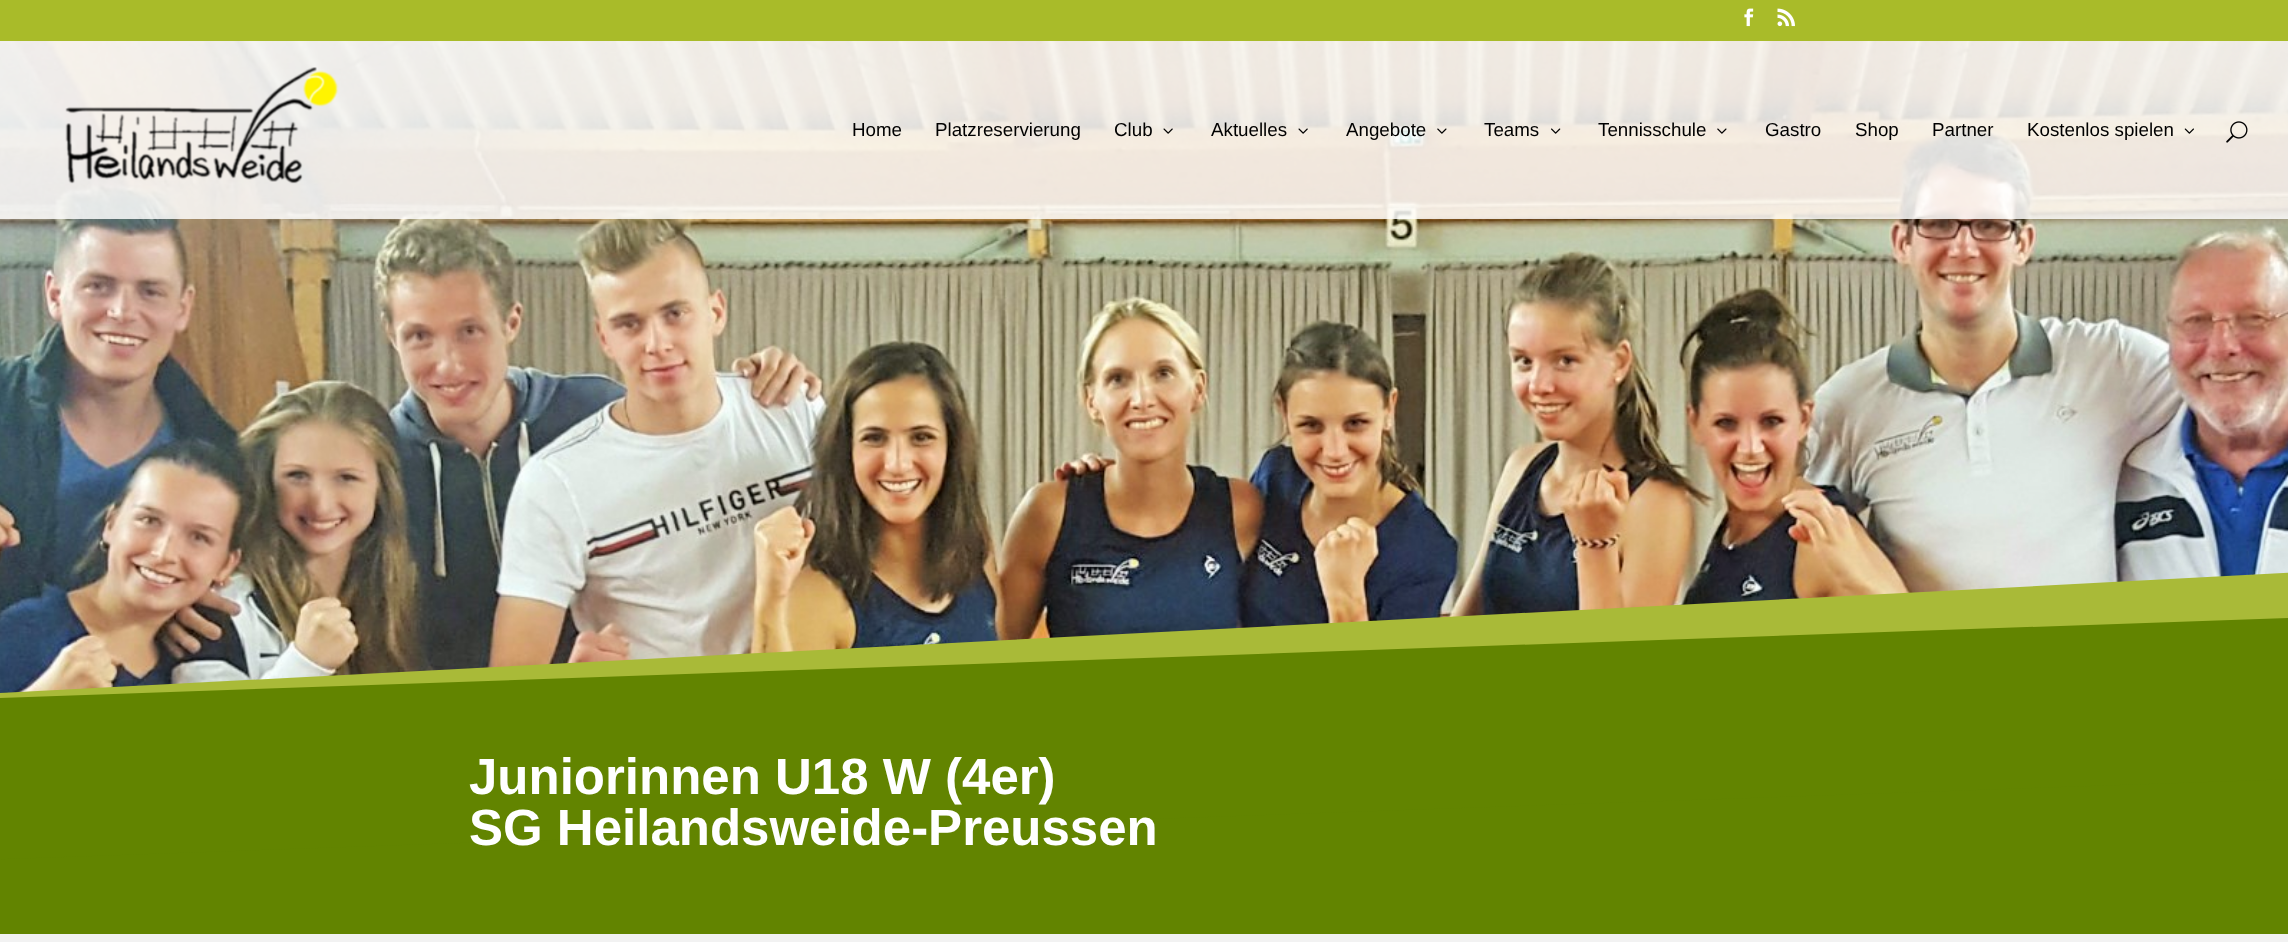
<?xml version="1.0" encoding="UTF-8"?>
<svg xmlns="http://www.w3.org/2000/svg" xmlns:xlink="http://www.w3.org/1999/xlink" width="2288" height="942">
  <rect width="100%" height="100%" fill="#ffffff" />
  <rect width="2288" height="41" fill="#a9bb29" />
  <image x="1744" y="8" width="10" height="19" xlink:href="image1.png" />
  <image x="1777" y="8" width="18" height="19" xlink:href="image2.png" />
  <image x="0" y="41" width="2288" height="652" xlink:href="image11.png" />
  <rect y="41" width="2288" height="178" fill="#ffffff" fill-opacity="0.84" />
  <image x="65" y="67" width="274" height="117" xlink:href="image3.png" />
  <image x="1163" y="128" width="10" height="6" xlink:href="image4.png" />
  <image x="1298" y="128" width="10" height="6" xlink:href="image5.png" />
  <image x="1437" y="128" width="10" height="6" xlink:href="image6.png" />
  <image x="1551" y="128" width="10" height="6" xlink:href="image7.png" />
  <image x="1717" y="128" width="10" height="6" xlink:href="image8.png" />
  <image x="2184" y="128" width="10" height="6" xlink:href="image9.png" />
  <image x="2226" y="121" width="22" height="22" xlink:href="image10.png" />
  <rect y="779" width="2288" height="155" fill="#628400" />
  <path d="M -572 723 l 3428 -180 l 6 108 l -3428 180 z" fill="#a9ba38" />
  <path d="M -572 718 l 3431 -120 l 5 161 l -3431 120 z" fill="#628400" />
  <rect y="934" width="2288" height="8" fill="#f2f2f2" />
  <text x="852" y="136" style="font-family: Liberation Sans; font-size: 18.75px; fill: #000000">Home</text>
  <text x="935" y="136" style="font-family: Liberation Sans; font-size: 18.75px; fill: #000000">Platzreservierung</text>
  <text x="1114" y="136" style="font-family: Liberation Sans; font-size: 18.75px; fill: #000000">Club</text>
  <text x="1211" y="136" style="font-family: Liberation Sans; font-size: 18.75px; fill: #000000">Aktuelles</text>
  <text x="1346" y="136" style="font-family: Liberation Sans; font-size: 18.75px; fill: #000000">Angebote</text>
  <text x="1484" y="136" style="font-family: Liberation Sans; font-size: 18.75px; fill: #000000">Teams</text>
  <text x="1598" y="136" style="font-family: Liberation Sans; font-size: 18.75px; fill: #000000">Tennisschule</text>
  <text x="1765" y="136" style="font-family: Liberation Sans; font-size: 18.75px; fill: #000000">Gastro</text>
  <text x="1855" y="136" style="font-family: Liberation Sans; font-size: 18.75px; fill: #000000">Shop</text>
  <text x="1932" y="136" style="font-family: Liberation Sans; font-size: 18.75px; fill: #000000">Partner</text>
  <text x="2027" y="136" style="font-family: Liberation Sans; font-size: 18.75px; fill: #000000">Kostenlos spielen</text>
  <text x="469" y="794" style="font-family: Liberation Sans; font-size: 51px; font-weight: bold; fill: #ffffff">Juniorinnen U18 W (4er)</text>
  <text x="469" y="845" style="font-family: Liberation Sans; font-size: 51px; font-weight: bold; fill: #ffffff">SG Heilandsweide-Preussen</text>
</svg>
